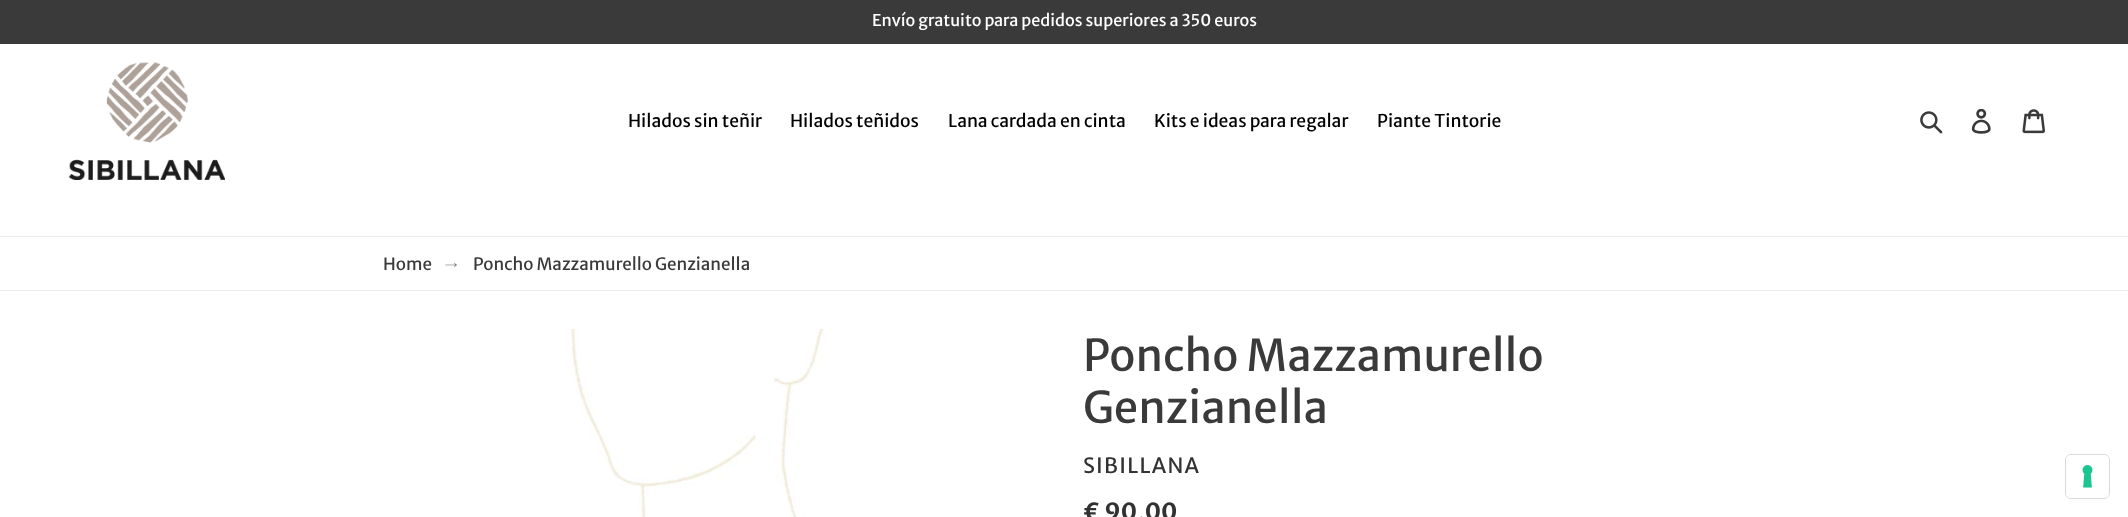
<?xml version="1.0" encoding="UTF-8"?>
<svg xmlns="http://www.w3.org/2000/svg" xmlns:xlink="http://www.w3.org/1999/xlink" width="2128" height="517">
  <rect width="100%" height="100%" fill="#ffffff" />
  <rect width="2128" height="44" fill="#3a3a3a" />
  <image x="68" y="62" width="157" height="118" xlink:href="image1.png" />
  <image x="1920" y="111" width="23" height="23" xlink:href="image2.png" />
  <image x="1971" y="109" width="20" height="25" xlink:href="image3.png" />
  <image x="2022" y="109" width="23" height="25" xlink:href="image4.png" />
  <rect y="236" width="2128" height="1" fill="#ebebeb" />
  <rect y="290" width="2128" height="1" fill="#ebebeb" />
  <image x="445" y="262" width="12" height="6" xlink:href="image5.png" />
  <image x="571" y="329" width="253" height="188" xlink:href="image6.png" />
  <rect x="2065.5" y="454.5" width="44" height="44" rx="5.5" fill="none" stroke="#d9d9d9" />
  <rect x="2066" y="455" width="43" height="43" rx="5" fill="#ffffff" />
  <image x="2082" y="465" width="11" height="23" xlink:href="image7.png" />
  <text x="872" y="26" style="font-family: Merriweather Sans; font-size: 16.25px; fill: #ffffff">Envío gratuito para pedidos superiores a 350 euros</text>
  <text x="628" y="127" style="font-family: Merriweather Sans; font-size: 17.5px; fill: #000000">Hilados sin teñir</text>
  <text x="790" y="127" style="font-family: Merriweather Sans; font-size: 17.5px; fill: #000000">Hilados teñidos</text>
  <text x="948" y="127" style="font-family: Merriweather Sans; font-size: 17.5px; fill: #000000">Lana cardada en cinta</text>
  <text x="1154" y="127" style="font-family: Merriweather Sans; font-size: 17.5px; fill: #000000">Kits e ideas para regalar</text>
  <text x="1377" y="127" style="font-family: Merriweather Sans; font-size: 17.5px; fill: #000000">Piante Tintorie</text>
  <text x="383" y="270" style="font-family: Merriweather Sans; font-size: 17px; fill: #3a3a3a">Home</text>
  <text x="473" y="270" style="font-family: Merriweather Sans; font-size: 17px; fill: #3a3a3a">Poncho Mazzamurello Genzianella</text>
  <text x="1083" y="371" style="font-family: Merriweather Sans; font-size: 43.75px; fill: #3a3a3a">Poncho Mazzamurello</text>
  <text x="1083" y="423" style="font-family: Merriweather Sans; font-size: 43.75px; fill: #3a3a3a">Genzianella</text>
  <text x="1083" y="473" style="font-family: Merriweather Sans; font-size: 21px; letter-spacing: 1.25px; fill: #333232">SIBILLANA</text>
  <text x="1083" y="520" style="font-family: Merriweather Sans; font-size: 23.5px; font-weight: bold; fill: #333232">€ 90,00</text>
</svg>
